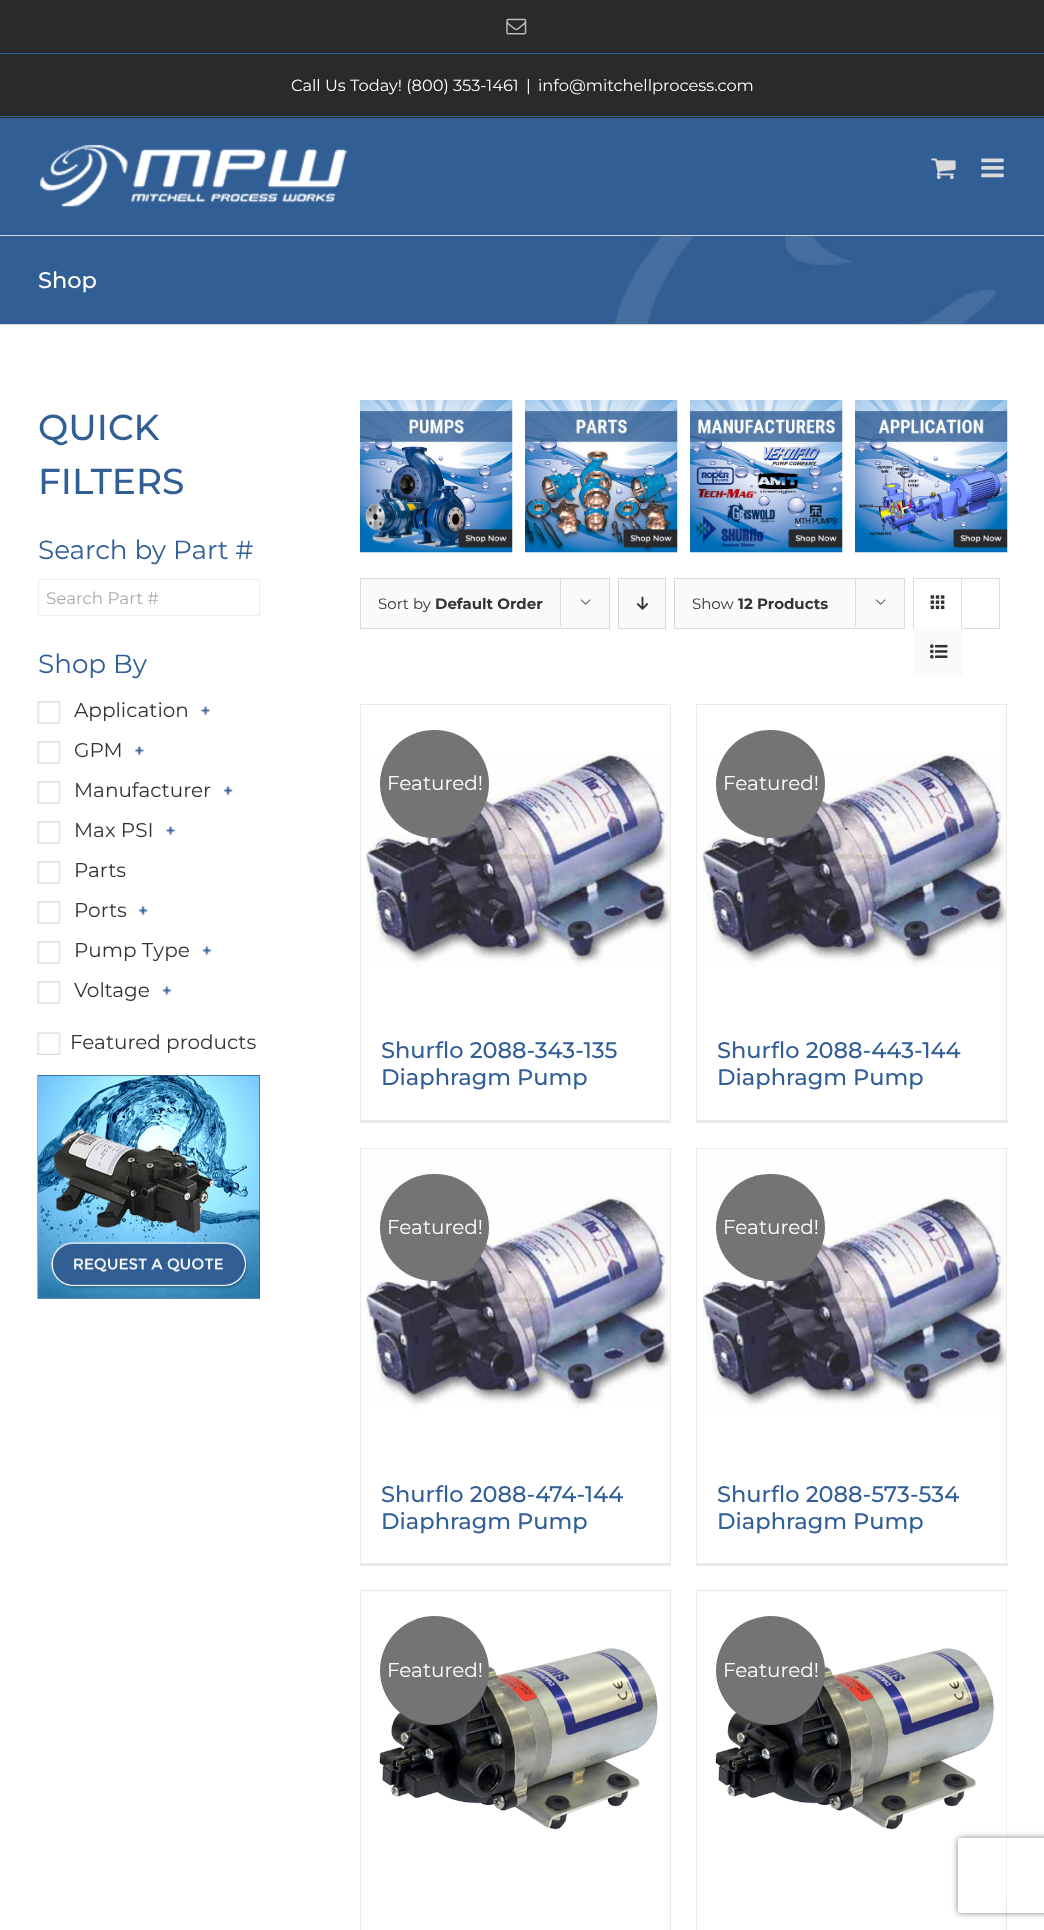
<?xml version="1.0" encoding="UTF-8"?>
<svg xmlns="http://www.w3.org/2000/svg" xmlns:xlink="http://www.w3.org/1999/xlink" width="1044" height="1930">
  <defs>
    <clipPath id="clip1"><path d="M 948 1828 h 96 v 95 h -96 z m 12.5 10 h 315 c 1.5 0 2.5 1 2.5 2.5 v 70 c 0 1.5 -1 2.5 -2.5 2.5 h -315 c -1.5 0 -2.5 -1 -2.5 -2.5 v -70 c 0 -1.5 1 -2.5 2.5 -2.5 z" clip-rule="evenodd" /></clipPath>
  </defs>
  <rect width="100%" height="100%" fill="#ffffff" />
  <rect width="1044" height="118" fill="#282a2b" />
  <rect y="116" width="1044" height="1" fill="#305e95" />
  <rect y="53" width="1044" height="1" fill="#305e95" />
  <image x="506" y="18" width="21" height="17" xlink:href="image1.png" />
  <rect y="118" width="1044" height="117" fill="#305e95" />
  <image x="39" y="144" width="309" height="63" xlink:href="image2.png" />
  <image x="931" y="158" width="25" height="22" xlink:href="image3.png" />
  <image x="981" y="158" width="23" height="20" xlink:href="image4.png" />
  <image x="0" y="236" width="1044" height="88" xlink:href="image5.png" />
  <rect y="235" width="1044" height="1" fill="#d2d3d4" />
  <rect y="324" width="1044" height="1" fill="#d2d3d4" />
  <rect x="38.5" y="579.5" width="221" height="36" fill="none" stroke="#eeeeee" />
  <image x="37" y="701" width="24" height="23" xlink:href="image6.png" />
  <image x="201" y="706" width="10" height="10" xlink:href="image7.png" />
  <image x="37" y="741" width="24" height="23" xlink:href="image6.png" />
  <image x="135" y="746" width="9" height="10" xlink:href="image8.png" />
  <image x="37" y="781" width="24" height="23" xlink:href="image6.png" />
  <image x="223" y="786" width="10" height="10" xlink:href="image9.png" />
  <image x="37" y="821" width="24" height="23" xlink:href="image6.png" />
  <image x="166" y="826" width="10" height="10" xlink:href="image7.png" />
  <image x="37" y="861" width="24" height="23" xlink:href="image6.png" />
  <image x="37" y="901" width="24" height="23" xlink:href="image6.png" />
  <image x="138" y="906" width="10" height="10" xlink:href="image10.png" />
  <image x="37" y="941" width="24" height="23" xlink:href="image6.png" />
  <image x="202" y="946" width="10" height="10" xlink:href="image11.png" />
  <image x="37" y="981" width="24" height="23" xlink:href="image6.png" />
  <image x="162" y="986" width="10" height="10" xlink:href="image11.png" />
  <image x="37" y="1032" width="24" height="23" xlink:href="image12.png" />
  <image x="37" y="1075" width="223" height="224" xlink:href="image13.png" />
  <image x="360" y="400" width="153" height="153" xlink:href="image14.png" />
  <image x="525" y="400" width="153" height="153" xlink:href="image15.png" />
  <image x="690" y="400" width="153" height="153" xlink:href="image16.png" />
  <image x="855" y="400" width="153" height="153" xlink:href="image17.png" />
  <rect x="360.5" y="578.5" width="249" height="50" fill="#fbfaf9" stroke="#dbdbdb" />
  <rect x="560" y="578" width="1" height="48" fill="#dbdbdb" />
  <image x="580" y="599" width="11" height="6" xlink:href="image18.png" />
  <rect x="618.5" y="578.5" width="47" height="50" fill="#fbfaf9" stroke="#dbdbdb" />
  <image x="636" y="596" width="13" height="14" xlink:href="image19.png" />
  <rect x="674.5" y="578.5" width="230" height="50" fill="#fbfaf9" stroke="#dbdbdb" />
  <rect x="855" y="578" width="1" height="48" fill="#dbdbdb" />
  <image x="875" y="599" width="11" height="6" xlink:href="image18.png" />
  <rect x="913.5" y="578.5" width="86" height="50" fill="none" stroke="#dbdbdb" />
  <rect x="961" y="579" width="1" height="49" fill="#dbdbdb" />
  <image x="930" y="595" width="15" height="15" xlink:href="image20.png" />
  <rect x="914" y="628" width="49" height="48" fill="#fbfaf9" />
  <image x="930" y="644" width="18" height="15" xlink:href="image21.png" />
  <rect x="360" y="704" width="311" height="1" fill="#ebeaea" />
  <rect x="670" y="704" width="1" height="419" fill="#ebeaea" />
  <rect x="360" y="1120" width="311" height="3" fill="#ebeaea" />
  <rect x="360" y="704" width="1" height="419" fill="#ebeaea" />
  <image x="363" y="753" width="307" height="214" xlink:href="image22.png" />
  <rect x="380" y="730" width="109" height="108" rx="54" fill="#747474" />
  <rect x="696" y="704" width="312" height="1" fill="#ebeaea" />
  <rect x="1006" y="704" width="1" height="419" fill="#ebeaea" />
  <rect x="696" y="1120" width="312" height="3" fill="#ebeaea" />
  <rect x="696" y="704" width="1" height="419" fill="#ebeaea" />
  <image x="699" y="753" width="307" height="214" xlink:href="image23.png" />
  <rect x="716" y="730" width="109" height="108" rx="54" fill="#747474" />
  <rect x="360" y="1148" width="311" height="1" fill="#ebeaea" />
  <rect x="670" y="1148" width="1" height="417" fill="#ebeaea" />
  <rect x="360" y="1563" width="311" height="3" fill="#ebeaea" />
  <rect x="360" y="1148" width="1" height="417" fill="#ebeaea" />
  <image x="361" y="1148" width="309" height="261" xlink:href="image24.png" />
  <rect x="380" y="1174" width="109" height="107" rx="53.5" fill="#747474" />
  <rect x="696" y="1148" width="312" height="1" fill="#ebeaea" />
  <rect x="1006" y="1148" width="1" height="417" fill="#ebeaea" />
  <rect x="696" y="1563" width="312" height="3" fill="#ebeaea" />
  <rect x="696" y="1148" width="1" height="417" fill="#ebeaea" />
  <image x="698" y="1148" width="308" height="262" xlink:href="image25.png" />
  <rect x="716" y="1174" width="109" height="107" rx="53.5" fill="#747474" />
  <rect x="360" y="1590" width="311" height="1" fill="#ebeaea" />
  <rect x="670" y="1590" width="1" height="340" fill="#ebeaea" />
  <rect x="360" y="1590" width="1" height="340" fill="#ebeaea" />
  <image x="379" y="1648" width="279" height="182" xlink:href="image26.png" />
  <circle cx="434.5" cy="1670.5" r="54.5" fill="#747474" />
  <rect x="696" y="1590" width="312" height="1" fill="#ebeaea" />
  <rect x="1006" y="1590" width="1" height="340" fill="#ebeaea" />
  <rect x="696" y="1590" width="1" height="340" fill="#ebeaea" />
  <image x="715" y="1592" width="292" height="308" xlink:href="image27.png" />
  <circle cx="770.5" cy="1670.5" r="54.5" fill="#747474" />
  <g clip-path="url(#clip1)">
    <rect x="958" y="1838" width="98" height="75" rx="2.5" fill="#808080" filter="blur(3px)" />
  </g>
  <text x="291" y="91" style="font-family: Montserrat; font-size: 16.25px; fill: #ffffff">Call Us Today! (800) 353-1461</text>
  <text x="526" y="91" style="font-family: Montserrat; font-size: 16.25px; fill: #ffffff">|</text>
  <text x="538" y="91" style="font-family: Montserrat; font-size: 16.25px; fill: #ffffff">info@mitchellprocess.com</text>
  <text x="38" y="288" style="font-family: Montserrat; font-size: 22.5px; font-weight: 500; fill: #ffffff">Shop</text>
  <text x="38" y="440" style="font-family: Montserrat; font-size: 36px; font-weight: 500; fill: #305e95">QUICK</text>
  <text x="38" y="494" style="font-family: Montserrat; font-size: 36px; font-weight: 500; fill: #305e95">FILTERS</text>
  <text x="38" y="559" style="font-family: Montserrat; font-size: 26.25px; fill: #305e95">Search by Part #</text>
  <text x="46" y="604" style="font-family: Montserrat; font-size: 16.75px; fill: #aaa9a9">Search Part #</text>
  <text x="38" y="673" style="font-family: Montserrat; font-size: 26.25px; fill: #305e95">Shop By</text>
  <text x="74" y="717" style="font-family: Montserrat; font-size: 20px; fill: #333333">Application</text>
  <text x="74" y="757" style="font-family: Montserrat; font-size: 20px; fill: #333333">GPM</text>
  <text x="74" y="797" style="font-family: Montserrat; font-size: 20px; fill: #333333">Manufacturer</text>
  <text x="74" y="837" style="font-family: Montserrat; font-size: 20px; fill: #333333">Max PSI</text>
  <text x="74" y="877" style="font-family: Montserrat; font-size: 20px; fill: #333333">Parts</text>
  <text x="74" y="917" style="font-family: Montserrat; font-size: 20px; fill: #333333">Ports</text>
  <text x="74" y="957" style="font-family: Montserrat; font-size: 20px; fill: #333333">Pump Type</text>
  <text x="74" y="997" style="font-family: Montserrat; font-size: 20px; fill: #333333">Voltage</text>
  <text x="70" y="1049" style="font-family: Montserrat; font-size: 20px; fill: #333333">Featured products</text>
  <text x="378" y="609" style="font-family: Montserrat; font-size: 15px; fill: #333333">Sort by</text>
  <text x="435" y="609" style="font-family: Montserrat; font-size: 15px; font-weight: bold; fill: #333333">Default Order</text>
  <text x="692" y="609" style="font-family: Montserrat; font-size: 15px; fill: #333333">Show</text>
  <text x="738" y="609" style="font-family: Montserrat; font-size: 15px; font-weight: bold; fill: #333333">12 Products</text>
  <text x="387" y="790" style="font-family: Montserrat; font-size: 20px; fill: #ffffff">Featured!</text>
  <text x="381" y="1058" style="font-family: Montserrat; font-size: 22.5px; font-weight: 500; fill: #305e95">Shurflo 2088-343-135</text>
  <text x="381" y="1085" style="font-family: Montserrat; font-size: 22.5px; font-weight: 500; fill: #305e95">Diaphragm Pump</text>
  <text x="723" y="790" style="font-family: Montserrat; font-size: 20px; fill: #ffffff">Featured!</text>
  <text x="717" y="1058" style="font-family: Montserrat; font-size: 22.5px; font-weight: 500; fill: #305e95">Shurflo 2088-443-144</text>
  <text x="717" y="1085" style="font-family: Montserrat; font-size: 22.5px; font-weight: 500; fill: #305e95">Diaphragm Pump</text>
  <text x="387" y="1234" style="font-family: Montserrat; font-size: 20px; fill: #ffffff">Featured!</text>
  <text x="381" y="1502" style="font-family: Montserrat; font-size: 22.5px; font-weight: 500; fill: #305e95">Shurflo 2088-474-144</text>
  <text x="381" y="1529" style="font-family: Montserrat; font-size: 22.5px; font-weight: 500; fill: #305e95">Diaphragm Pump</text>
  <text x="723" y="1234" style="font-family: Montserrat; font-size: 20px; fill: #ffffff">Featured!</text>
  <text x="717" y="1502" style="font-family: Montserrat; font-size: 22.5px; font-weight: 500; fill: #305e95">Shurflo 2088-573-534</text>
  <text x="717" y="1529" style="font-family: Montserrat; font-size: 22.5px; font-weight: 500; fill: #305e95">Diaphragm Pump</text>
  <text x="387" y="1677" style="font-family: Montserrat; font-size: 20px; fill: #ffffff">Featured!</text>
  <text x="723" y="1677" style="font-family: Montserrat; font-size: 20px; fill: #ffffff">Featured!</text>
</svg>
